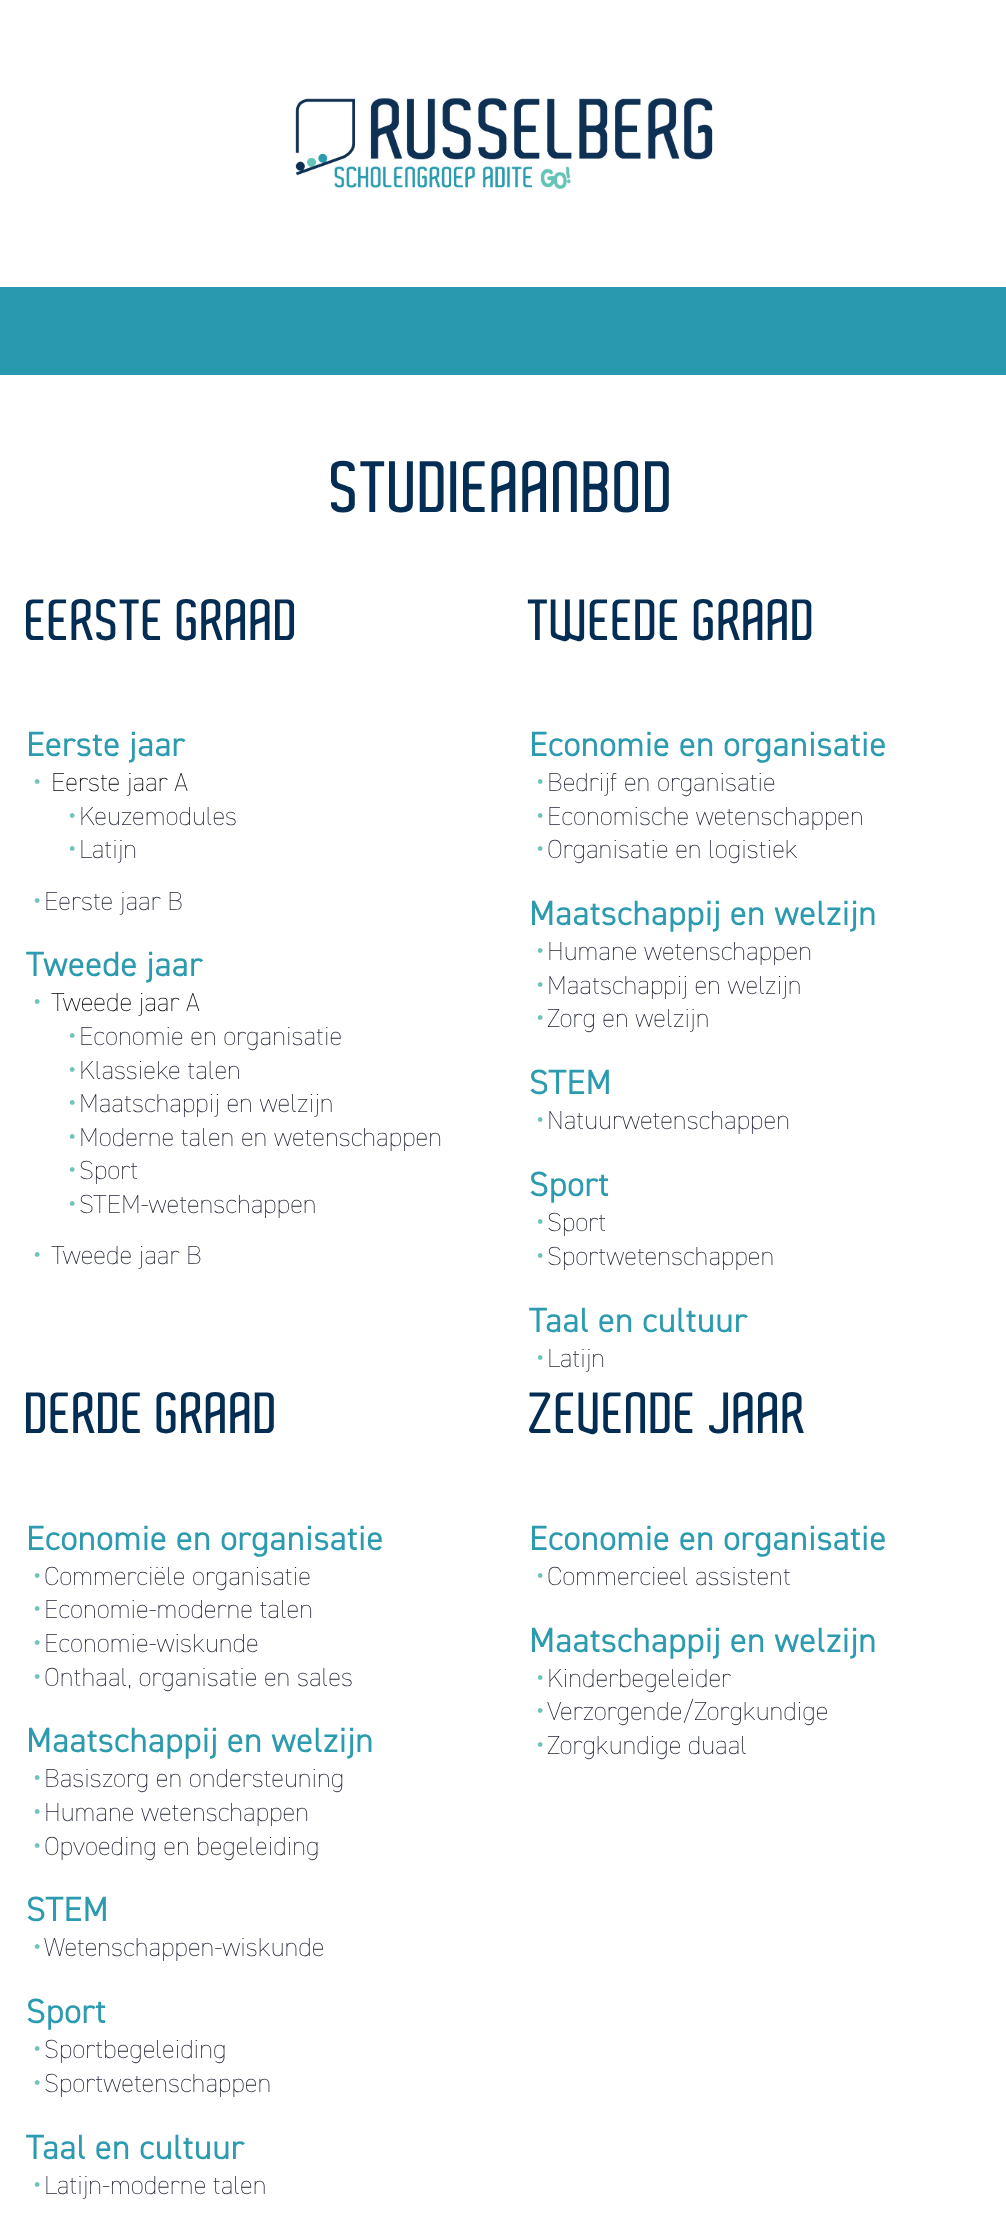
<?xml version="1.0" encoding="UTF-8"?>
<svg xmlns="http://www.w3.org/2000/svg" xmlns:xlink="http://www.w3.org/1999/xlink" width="1006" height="2216">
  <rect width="100%" height="100%" fill="#ffffff" />
  <image x="295" y="97" width="418" height="93" xlink:href="image1.png" />
  <rect y="287" width="1006" height="88" fill="#289aaf" />
  <text x="331" y="512" style="font-family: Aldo; font-size: 70px; font-weight: 600; fill: #042d53">STUDIEAANBOD</text>
  <text x="26" y="640" style="font-family: Aldo; font-size: 56px; font-weight: 600; fill: #042d53">EERSTE GRAAD</text>
  <text x="26" y="756" style="font-family: 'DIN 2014'; font-size: 35px; fill: #2c9baf">Eerste jaar</text>
  <text x="33" y="791" style="font-family: 'DIN 2014'; font-size: 28px; font-weight: 200; fill: #6fc3b7">•</text>
  <text x="51" y="791" style="font-family: 'DIN 2014'; font-size: 26.25px; font-weight: 200; fill: #000000">Eerste jaar A</text>
  <text x="68" y="825" style="font-family: 'DIN 2014'; font-size: 28px; font-weight: 200; fill: #6fc3b7">•</text>
  <text x="79" y="825" style="font-family: 'DIN 2014'; font-size: 26.25px; font-weight: 200; fill: #242738">Keuzemodules</text>
  <text x="68" y="858" style="font-family: 'DIN 2014'; font-size: 28px; font-weight: 200; fill: #6fc3b7">•</text>
  <text x="79" y="858" style="font-family: 'DIN 2014'; font-size: 26.25px; font-weight: 200; fill: #242738">Latijn</text>
  <text x="33" y="910" style="font-family: 'DIN 2014'; font-size: 28px; font-weight: 200; fill: #6fc3b7">•</text>
  <text x="44" y="910" style="font-family: 'DIN 2014'; font-size: 26.25px; font-weight: 200; fill: #242738">Eerste jaar B</text>
  <text x="26" y="976" style="font-family: 'DIN 2014'; font-size: 35px; fill: #2c9baf">Tweede jaar</text>
  <text x="33" y="1011" style="font-family: 'DIN 2014'; font-size: 28px; font-weight: 200; fill: #6fc3b7">•</text>
  <text x="51" y="1011" style="font-family: 'DIN 2014'; font-size: 26.25px; font-weight: 200; fill: #000000">Tweede jaar A</text>
  <text x="68" y="1045" style="font-family: 'DIN 2014'; font-size: 28px; font-weight: 200; fill: #6fc3b7">•</text>
  <text x="79" y="1045" style="font-family: 'DIN 2014'; font-size: 26.25px; font-weight: 200; fill: #242738">Economie en organisatie</text>
  <text x="68" y="1079" style="font-family: 'DIN 2014'; font-size: 28px; font-weight: 200; fill: #6fc3b7">•</text>
  <text x="79" y="1079" style="font-family: 'DIN 2014'; font-size: 26.25px; font-weight: 200; fill: #242738">Klassieke talen</text>
  <text x="68" y="1112" style="font-family: 'DIN 2014'; font-size: 28px; font-weight: 200; fill: #6fc3b7">•</text>
  <text x="79" y="1112" style="font-family: 'DIN 2014'; font-size: 26.25px; font-weight: 200; fill: #242738">Maatschappij en welzijn</text>
  <text x="68" y="1146" style="font-family: 'DIN 2014'; font-size: 28px; font-weight: 200; fill: #6fc3b7">•</text>
  <text x="79" y="1146" style="font-family: 'DIN 2014'; font-size: 26.25px; font-weight: 200; fill: #242738">Moderne talen en wetenschappen</text>
  <text x="68" y="1179" style="font-family: 'DIN 2014'; font-size: 28px; font-weight: 200; fill: #6fc3b7">•</text>
  <text x="79" y="1179" style="font-family: 'DIN 2014'; font-size: 26.25px; font-weight: 200; fill: #242738">Sport</text>
  <text x="68" y="1213" style="font-family: 'DIN 2014'; font-size: 28px; font-weight: 200; fill: #6fc3b7">•</text>
  <text x="79" y="1213" style="font-family: 'DIN 2014'; font-size: 26.25px; font-weight: 200; fill: #242738">STEM-wetenschappen</text>
  <text x="33" y="1264" style="font-family: 'DIN 2014'; font-size: 28px; font-weight: 200; fill: #6fc3b7">•</text>
  <text x="51" y="1264" style="font-family: 'DIN 2014'; font-size: 26.25px; font-weight: 200; fill: #242738">Tweede jaar B</text>
  <text x="529" y="640" style="font-family: Aldo; font-size: 56px; font-weight: 600; fill: #042d53">TWEEDE GRAAD</text>
  <text x="529" y="756" style="font-family: 'DIN 2014'; font-size: 35px; fill: #2c9baf">Economie en organisatie</text>
  <text x="536" y="791" style="font-family: 'DIN 2014'; font-size: 28px; font-weight: 200; fill: #6fc3b7">•</text>
  <text x="547" y="791" style="font-family: 'DIN 2014'; font-size: 26.25px; font-weight: 200; fill: #242738">Bedrijf en organisatie</text>
  <text x="536" y="825" style="font-family: 'DIN 2014'; font-size: 28px; font-weight: 200; fill: #6fc3b7">•</text>
  <text x="547" y="825" style="font-family: 'DIN 2014'; font-size: 26.25px; font-weight: 200; fill: #242738">Economische wetenschappen</text>
  <text x="536" y="858" style="font-family: 'DIN 2014'; font-size: 28px; font-weight: 200; fill: #6fc3b7">•</text>
  <text x="547" y="858" style="font-family: 'DIN 2014'; font-size: 26.25px; font-weight: 200; fill: #242738">Organisatie en logistiek</text>
  <text x="529" y="925" style="font-family: 'DIN 2014'; font-size: 35px; fill: #2c9baf">Maatschappij en welzijn</text>
  <text x="536" y="960" style="font-family: 'DIN 2014'; font-size: 28px; font-weight: 200; fill: #6fc3b7">•</text>
  <text x="547" y="960" style="font-family: 'DIN 2014'; font-size: 26.25px; font-weight: 200; fill: #242738">Humane wetenschappen</text>
  <text x="536" y="994" style="font-family: 'DIN 2014'; font-size: 28px; font-weight: 200; fill: #6fc3b7">•</text>
  <text x="547" y="994" style="font-family: 'DIN 2014'; font-size: 26.25px; font-weight: 200; fill: #242738">Maatschappij en welzijn</text>
  <text x="536" y="1027" style="font-family: 'DIN 2014'; font-size: 28px; font-weight: 200; fill: #6fc3b7">•</text>
  <text x="547" y="1027" style="font-family: 'DIN 2014'; font-size: 26.25px; font-weight: 200; fill: #242738">Zorg en welzijn</text>
  <text x="529" y="1094" style="font-family: 'DIN 2014'; font-size: 35px; fill: #2c9baf">STEM</text>
  <text x="536" y="1129" style="font-family: 'DIN 2014'; font-size: 28px; font-weight: 200; fill: #6fc3b7">•</text>
  <text x="547" y="1129" style="font-family: 'DIN 2014'; font-size: 26.25px; font-weight: 200; fill: #242738">Natuurwetenschappen</text>
  <text x="529" y="1196" style="font-family: 'DIN 2014'; font-size: 35px; fill: #2c9baf">Sport</text>
  <text x="536" y="1231" style="font-family: 'DIN 2014'; font-size: 28px; font-weight: 200; fill: #6fc3b7">•</text>
  <text x="547" y="1231" style="font-family: 'DIN 2014'; font-size: 26.25px; font-weight: 200; fill: #242738">Sport</text>
  <text x="536" y="1265" style="font-family: 'DIN 2014'; font-size: 28px; font-weight: 200; fill: #6fc3b7">•</text>
  <text x="547" y="1265" style="font-family: 'DIN 2014'; font-size: 26.25px; font-weight: 200; fill: #242738">Sportwetenschappen</text>
  <text x="529" y="1332" style="font-family: 'DIN 2014'; font-size: 35px; fill: #2c9baf">Taal en cultuur</text>
  <text x="536" y="1367" style="font-family: 'DIN 2014'; font-size: 28px; font-weight: 200; fill: #6fc3b7">•</text>
  <text x="547" y="1367" style="font-family: 'DIN 2014'; font-size: 26.25px; font-weight: 200; fill: #242738">Latijn</text>
  <text x="26" y="1433" style="font-family: Aldo; font-size: 56px; font-weight: 600; fill: #042d53">DERDE GRAAD</text>
  <text x="26" y="1550" style="font-family: 'DIN 2014'; font-size: 35px; fill: #2c9baf">Economie en organisatie</text>
  <text x="33" y="1585" style="font-family: 'DIN 2014'; font-size: 28px; font-weight: 200; fill: #6fc3b7">•</text>
  <text x="44" y="1585" style="font-family: 'DIN 2014'; font-size: 26.25px; font-weight: 200; fill: #242738">Commerciële organisatie</text>
  <text x="33" y="1618" style="font-family: 'DIN 2014'; font-size: 28px; font-weight: 200; fill: #6fc3b7">•</text>
  <text x="44" y="1618" style="font-family: 'DIN 2014'; font-size: 26.25px; font-weight: 200; fill: #242738">Economie-moderne talen</text>
  <text x="33" y="1652" style="font-family: 'DIN 2014'; font-size: 28px; font-weight: 200; fill: #6fc3b7">•</text>
  <text x="44" y="1652" style="font-family: 'DIN 2014'; font-size: 26.25px; font-weight: 200; fill: #242738">Economie-wiskunde</text>
  <text x="33" y="1686" style="font-family: 'DIN 2014'; font-size: 28px; font-weight: 200; fill: #6fc3b7">•</text>
  <text x="44" y="1686" style="font-family: 'DIN 2014'; font-size: 26.25px; font-weight: 200; fill: #242738">Onthaal, organisatie en sales</text>
  <text x="26" y="1752" style="font-family: 'DIN 2014'; font-size: 35px; fill: #2c9baf">Maatschappij en welzijn</text>
  <text x="33" y="1787" style="font-family: 'DIN 2014'; font-size: 28px; font-weight: 200; fill: #6fc3b7">•</text>
  <text x="44" y="1787" style="font-family: 'DIN 2014'; font-size: 26.25px; font-weight: 200; fill: #242738">Basiszorg en ondersteuning</text>
  <text x="33" y="1821" style="font-family: 'DIN 2014'; font-size: 28px; font-weight: 200; fill: #6fc3b7">•</text>
  <text x="44" y="1821" style="font-family: 'DIN 2014'; font-size: 26.25px; font-weight: 200; fill: #242738">Humane wetenschappen</text>
  <text x="33" y="1855" style="font-family: 'DIN 2014'; font-size: 28px; font-weight: 200; fill: #6fc3b7">•</text>
  <text x="44" y="1855" style="font-family: 'DIN 2014'; font-size: 26.25px; font-weight: 200; fill: #242738">Opvoeding en begeleiding</text>
  <text x="26" y="1921" style="font-family: 'DIN 2014'; font-size: 35px; fill: #2c9baf">STEM</text>
  <text x="33" y="1956" style="font-family: 'DIN 2014'; font-size: 28px; font-weight: 200; fill: #6fc3b7">•</text>
  <text x="44" y="1956" style="font-family: 'DIN 2014'; font-size: 26.25px; font-weight: 200; fill: #242738">Wetenschappen-wiskunde</text>
  <text x="26" y="2023" style="font-family: 'DIN 2014'; font-size: 35px; fill: #2c9baf">Sport</text>
  <text x="33" y="2058" style="font-family: 'DIN 2014'; font-size: 28px; font-weight: 200; fill: #6fc3b7">•</text>
  <text x="44" y="2058" style="font-family: 'DIN 2014'; font-size: 26.25px; font-weight: 200; fill: #242738">Sportbegeleiding</text>
  <text x="33" y="2092" style="font-family: 'DIN 2014'; font-size: 28px; font-weight: 200; fill: #6fc3b7">•</text>
  <text x="44" y="2092" style="font-family: 'DIN 2014'; font-size: 26.25px; font-weight: 200; fill: #242738">Sportwetenschappen</text>
  <text x="26" y="2159" style="font-family: 'DIN 2014'; font-size: 35px; fill: #2c9baf">Taal en cultuur</text>
  <text x="33" y="2194" style="font-family: 'DIN 2014'; font-size: 28px; font-weight: 200; fill: #6fc3b7">•</text>
  <text x="44" y="2194" style="font-family: 'DIN 2014'; font-size: 26.25px; font-weight: 200; fill: #242738">Latijn-moderne talen</text>
  <text x="529" y="1433" style="font-family: Aldo; font-size: 56px; font-weight: 600; fill: #042d53">ZEVENDE JAAR</text>
  <text x="529" y="1550" style="font-family: 'DIN 2014'; font-size: 35px; fill: #2c9baf">Economie en organisatie</text>
  <text x="536" y="1585" style="font-family: 'DIN 2014'; font-size: 28px; font-weight: 200; fill: #6fc3b7">•</text>
  <text x="547" y="1585" style="font-family: 'DIN 2014'; font-size: 26.25px; font-weight: 200; fill: #242738">Commercieel assistent</text>
  <text x="529" y="1652" style="font-family: 'DIN 2014'; font-size: 35px; fill: #2c9baf">Maatschappij en welzijn</text>
  <text x="536" y="1687" style="font-family: 'DIN 2014'; font-size: 28px; font-weight: 200; fill: #6fc3b7">•</text>
  <text x="547" y="1687" style="font-family: 'DIN 2014'; font-size: 26.25px; font-weight: 200; fill: #242738">Kinderbegeleider</text>
  <text x="536" y="1720" style="font-family: 'DIN 2014'; font-size: 28px; font-weight: 200; fill: #6fc3b7">•</text>
  <text x="547" y="1720" style="font-family: 'DIN 2014'; font-size: 26.25px; font-weight: 200; fill: #242738">Verzorgende/Zorgkundige</text>
  <text x="536" y="1754" style="font-family: 'DIN 2014'; font-size: 28px; font-weight: 200; fill: #6fc3b7">•</text>
  <text x="547" y="1754" style="font-family: 'DIN 2014'; font-size: 26.25px; font-weight: 200; fill: #242738">Zorgkundige duaal</text>
</svg>
